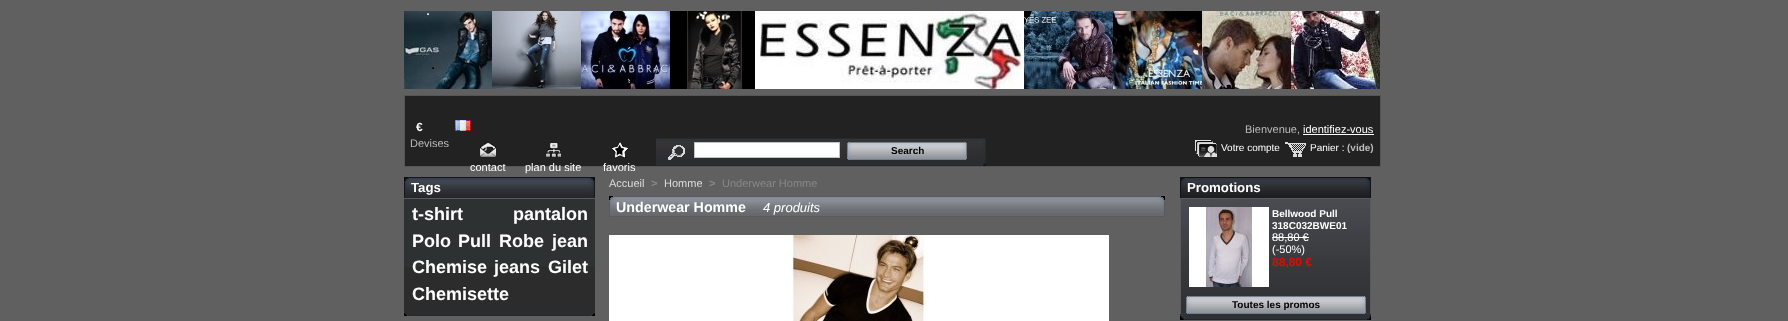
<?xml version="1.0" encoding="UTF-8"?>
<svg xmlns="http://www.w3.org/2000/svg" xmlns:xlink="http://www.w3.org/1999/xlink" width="1788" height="321">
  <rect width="100%" height="100%" fill="#606060" />
  <image x="404" y="11" width="976" height="78" xlink:href="image1.png" />
  <rect x="404.5" y="95.5" width="976" height="71" fill="#222222" stroke="#555555" />
  <image x="455" y="120" width="16" height="11" xlink:href="image2.png" />
  <image x="656" y="138" width="330" height="28" xlink:href="image3.png" />
  <image x="668" y="145" width="17" height="15" xlink:href="image4.png" />
  <rect x="694.5" y="142.5" width="145" height="15" fill="#ffffff" stroke="#bdc2c9" />
  <image x="847" y="142" width="120" height="18" xlink:href="image5.png" />
  <rect x="1303" y="134" width="71" height="1" fill="#ffffff" />
  <image x="1195" y="140" width="22" height="17" xlink:href="image6.png" />
  <image x="1285" y="142" width="21" height="15" xlink:href="image7.png" />
  <image x="480" y="143" width="16" height="14" xlink:href="image8.png" />
  <image x="546" y="143" width="15" height="14" xlink:href="image9.png" />
  <image x="612" y="142" width="16" height="16" xlink:href="image10.png" />
  <image x="404" y="310" width="191" height="6" xlink:href="image11.png" />
  <image x="404" y="177" width="191" height="21" xlink:href="image12.png" />
  <rect x="404" y="198" width="191" height="1" fill="#595a5e" />
  <rect x="404" y="199" width="191" height="68" fill="#2d3132" />
  <rect x="404" y="267" width="191" height="43" fill="#2c2c2c" />
  <image x="609" y="196" width="556" height="21" xlink:href="image13.png" />
  <image x="609" y="235" width="500" height="86" xlink:href="image14.png" />
  <image x="1180" y="314" width="191" height="6" xlink:href="image15.png" />
  <image x="1180" y="177" width="191" height="21" xlink:href="image16.png" />
  <rect x="1180" y="198" width="191" height="1" fill="#595a5e" />
  <image x="1181" y="199" width="189" height="115" xlink:href="image17.png" />
  <rect x="1370" y="199" width="1" height="115" fill="#595a5e" />
  <rect x="1180" y="199" width="1" height="115" fill="#595a5e" />
  <image x="1189" y="207" width="80" height="80" xlink:href="image18.png" />
  <rect x="1272" y="237" width="37" height="1" fill="#ffffff" />
  <image x="1186" y="296" width="180" height="18" xlink:href="image19.png" />
  <text x="416" y="131" style="font-family: Liberation Sans; font-size: 12px; font-weight: bold; fill: #ffffff">€</text>
  <text x="410" y="147" style="font-family: Liberation Sans; font-size: 11px; fill: #bbbbbb">Devises</text>
  <text x="891" y="154" style="font-family: Liberation Sans; font-size: 10px; font-weight: bold; fill: #000000">Search</text>
  <text x="1245" y="133" style="font-family: Liberation Sans; font-size: 11px; fill: #bbbbbb">Bienvenue,</text>
  <text x="1303" y="133" style="font-family: Liberation Sans; font-size: 11px; fill: #ffffff">identifiez-vous</text>
  <text x="1221" y="151" style="font-family: Liberation Sans; font-size: 10px; fill: #ffffff">Votre compte</text>
  <text x="1310" y="151" style="font-family: Liberation Sans; font-size: 10px; fill: #ffffff">Panier :</text>
  <text x="1347" y="151" style="font-family: Liberation Sans; font-size: 10px; font-weight: bold; fill: #bbbbbb">(vide)</text>
  <text x="470" y="171" style="font-family: Liberation Sans; font-size: 11px; fill: #ffffff">contact</text>
  <text x="525" y="171" style="font-family: Liberation Sans; font-size: 11px; fill: #ffffff">plan du site</text>
  <text x="603" y="171" style="font-family: Liberation Sans; font-size: 11px; fill: #ffffff">favoris</text>
  <text x="411" y="192" style="font-family: Liberation Sans; font-size: 13.25px; font-weight: bold; fill: #ffffff">Tags</text>
  <text x="412" y="220" style="font-family: Liberation Sans; font-size: 18px; font-weight: bold; fill: #ffffff">t-shirt</text>
  <text x="513" y="220" style="font-family: Liberation Sans; font-size: 18px; font-weight: bold; fill: #ffffff">pantalon</text>
  <text x="412" y="247" style="font-family: Liberation Sans; font-size: 18px; font-weight: bold; fill: #ffffff">Polo</text>
  <text x="458" y="247" style="font-family: Liberation Sans; font-size: 18px; font-weight: bold; fill: #ffffff">Pull</text>
  <text x="499" y="247" style="font-family: Liberation Sans; font-size: 18px; font-weight: bold; fill: #ffffff">Robe</text>
  <text x="552" y="247" style="font-family: Liberation Sans; font-size: 18px; font-weight: bold; fill: #ffffff">jean</text>
  <text x="412" y="273" style="font-family: Liberation Sans; font-size: 18px; font-weight: bold; fill: #ffffff">Chemise</text>
  <text x="494" y="273" style="font-family: Liberation Sans; font-size: 18px; font-weight: bold; fill: #ffffff">jeans</text>
  <text x="548" y="273" style="font-family: Liberation Sans; font-size: 18px; font-weight: bold; fill: #ffffff">Gilet</text>
  <text x="412" y="300" style="font-family: Liberation Sans; font-size: 18px; font-weight: bold; fill: #ffffff">Chemisette</text>
  <text x="609" y="187" style="font-family: Liberation Sans; font-size: 11px; fill: #dddddd">Accueil</text>
  <text x="651" y="187" style="font-family: Liberation Sans; font-size: 11px; font-weight: bold; fill: #888888">&gt;</text>
  <text x="664" y="187" style="font-family: Liberation Sans; font-size: 11px; fill: #dddddd">Homme</text>
  <text x="709" y="187" style="font-family: Liberation Sans; font-size: 11px; font-weight: bold; fill: #888888">&gt;</text>
  <text x="722" y="187" style="font-family: Liberation Sans; font-size: 11px; fill: #888888">Underwear Homme</text>
  <text x="616" y="212" style="font-family: Liberation Sans; font-size: 14.25px; font-weight: bold; fill: #ffffff">Underwear Homme</text>
  <text x="763" y="212" style="font-family: Liberation Sans; font-size: 13px; font-style: italic; fill: #ffffff">4 produits</text>
  <text x="1187" y="192" style="font-family: Liberation Sans; font-size: 13.25px; font-weight: bold; fill: #ffffff">Promotions</text>
  <text x="1272" y="217" style="font-family: Liberation Sans; font-size: 10px; font-weight: bold; fill: #ffffff">Bellwood Pull</text>
  <text x="1272" y="229" style="font-family: Liberation Sans; font-size: 10px; font-weight: bold; fill: #ffffff">318C032BWE01</text>
  <text x="1272" y="241" style="font-family: Liberation Sans; font-size: 11px; fill: #ffffff">88,80 €</text>
  <text x="1272" y="253" style="font-family: Liberation Sans; font-size: 11px; fill: #ffffff">(-50%)</text>
  <text x="1272" y="266" style="font-family: Liberation Sans; font-size: 12px; font-weight: bold; fill: #da0f00">88,80 €</text>
  <text x="1232" y="308" style="font-family: Liberation Sans; font-size: 10px; font-weight: bold; fill: #000000">Toutes les promos</text>
</svg>
